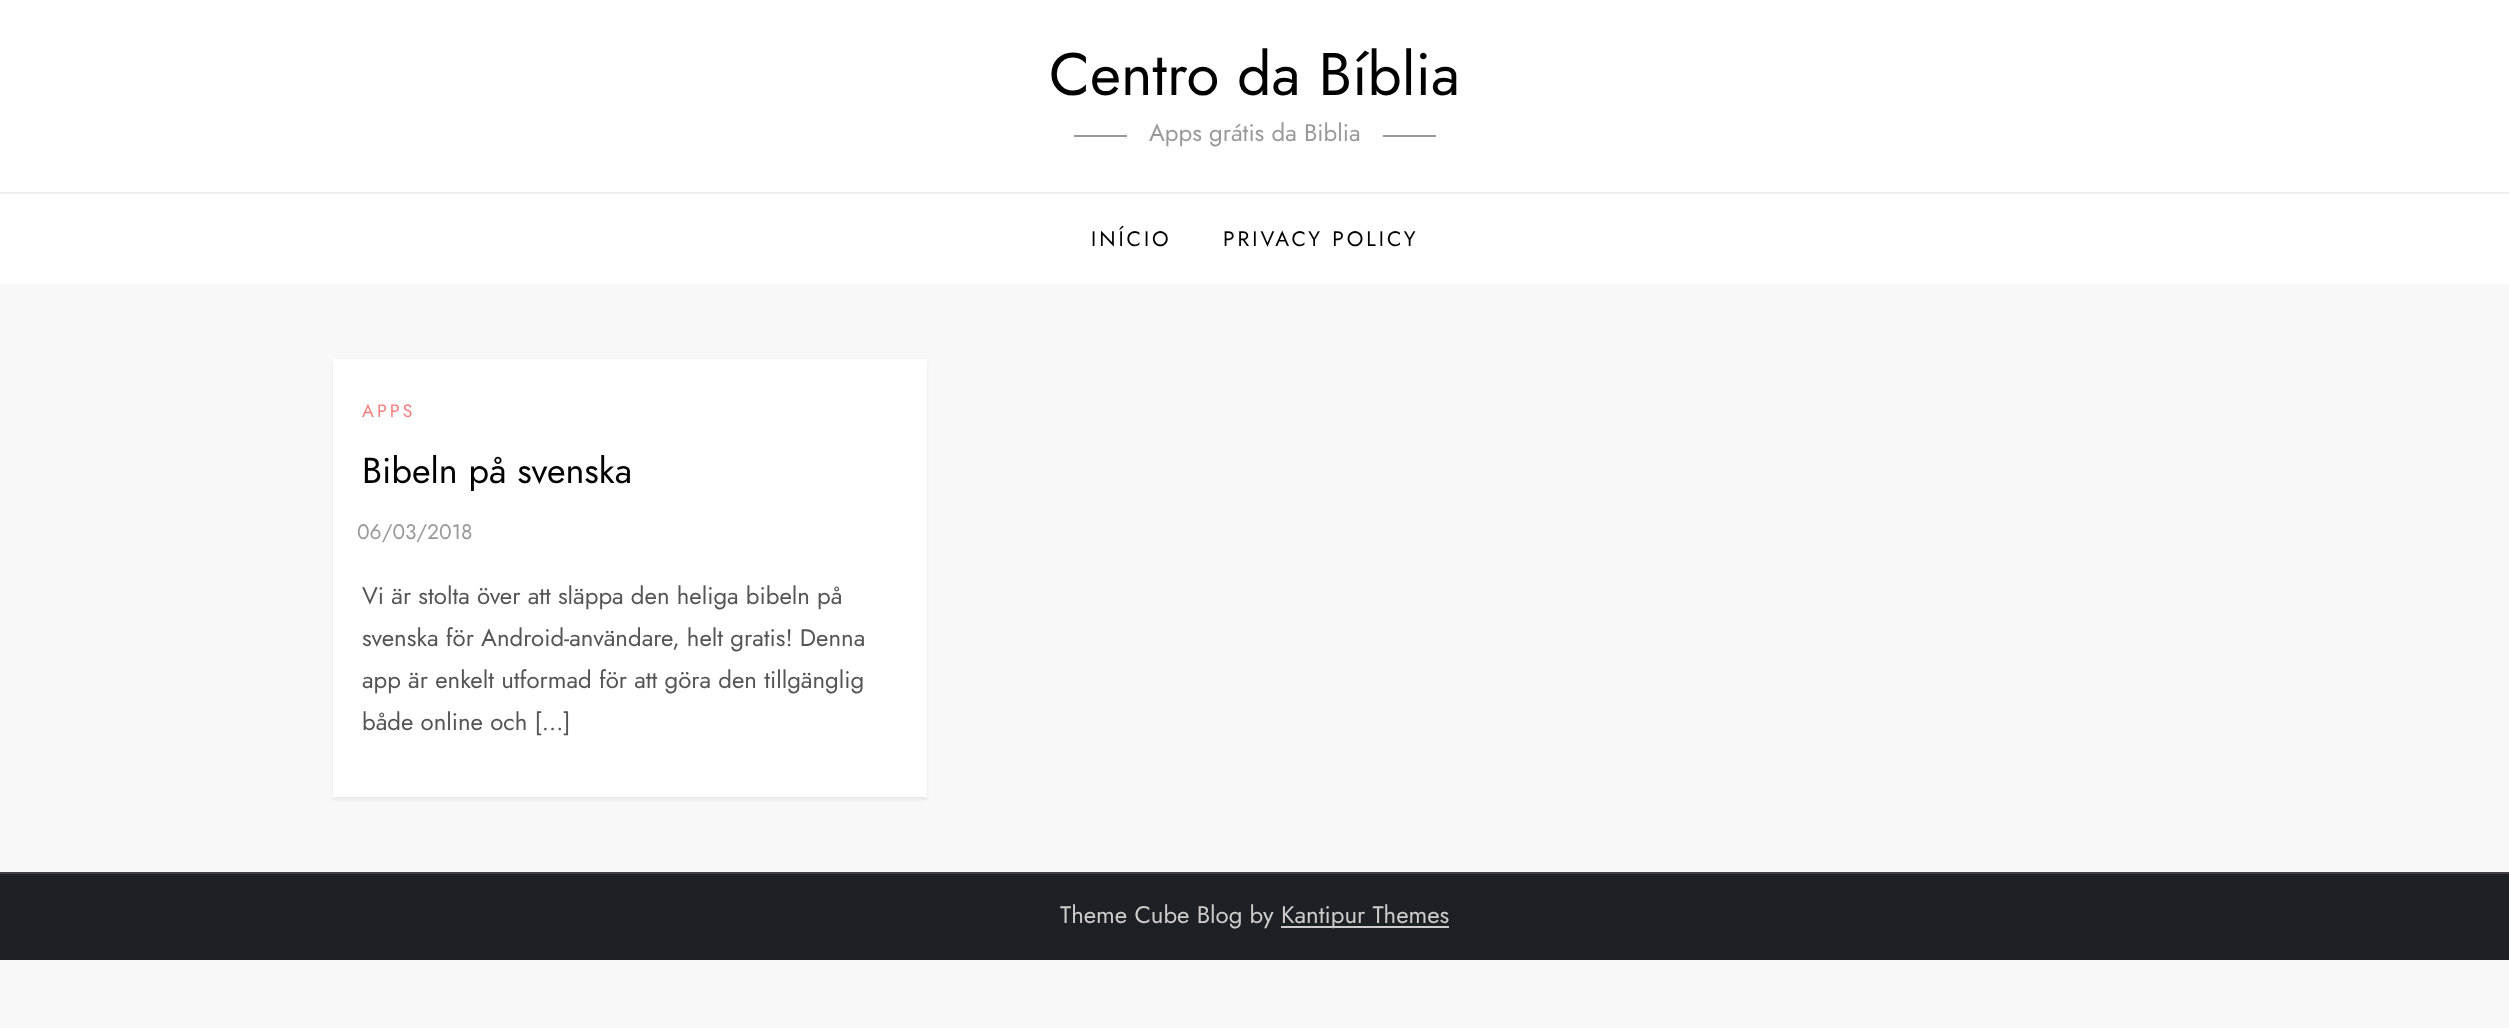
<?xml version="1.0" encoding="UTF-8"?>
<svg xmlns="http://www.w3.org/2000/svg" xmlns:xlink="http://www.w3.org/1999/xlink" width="2509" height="1028">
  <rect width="100%" height="100%" fill="#f8f8f8" />
  <rect width="2509" height="284" fill="#ffffff" />
  <rect x="1074" y="135" width="53" height="2" fill="#999999" />
  <rect x="1383" y="135" width="53" height="2" fill="#999999" />
  <rect y="192" width="2509" height="2" fill="#eeeeee" />
  <rect x="333" y="362" width="594" height="438" fill="#000000" fill-opacity="0.06" filter="blur(1.5px)" />
  <rect x="333" y="359" width="594" height="438" fill="#ffffff" />
  <rect y="874" width="2509" height="86" fill="#1d2024" />
  <rect y="872" width="2509" height="2" fill="#3f4145" />
  <rect x="1281" y="926" width="168" height="2" fill="#cccccc" />
  <text x="1049" y="95" style="font-family: Jost; font-size: 60px; fill: #000000">Centro da Bíblia</text>
  <text x="1149" y="141" style="font-family: Jost; font-size: 24px; fill: #999999">Apps grátis da Biblia</text>
  <text x="1091" y="246" style="font-family: Jost; font-size: 21px; letter-spacing: 3px; fill: #000000">INÍCIO</text>
  <text x="1223" y="246" style="font-family: Jost; font-size: 21px; letter-spacing: 3px; fill: #000000">PRIVACY POLICY</text>
  <text x="362" y="417" style="font-family: Jost; font-size: 18px; letter-spacing: 3px; fill: #f37e7e">APPS</text>
  <text x="362" y="483" style="font-family: Jost; font-size: 36px; fill: #000000">Bibeln på svenska</text>
  <text x="357" y="539" style="font-family: Jost; font-size: 21px; fill: #999999">06/03/2018</text>
  <text x="362" y="604" style="font-family: Jost; font-size: 24px; fill: #555555">Vi är stolta över att släppa den heliga bibeln på</text>
  <text x="362" y="646" style="font-family: Jost; font-size: 24px; fill: #555555">svenska för Android-användare, helt gratis! Denna</text>
  <text x="362" y="688" style="font-family: Jost; font-size: 24px; fill: #555555">app är enkelt utformad för att göra den tillgänglig</text>
  <text x="362" y="730" style="font-family: Jost; font-size: 24px; fill: #555555">både online och […]</text>
  <text x="1060" y="923" style="font-family: Jost; font-size: 24px; fill: #cccccc">Theme Cube Blog by</text>
  <text x="1281" y="923" style="font-family: Jost; font-size: 24px; fill: #cccccc">Kantipur Themes</text>
</svg>
